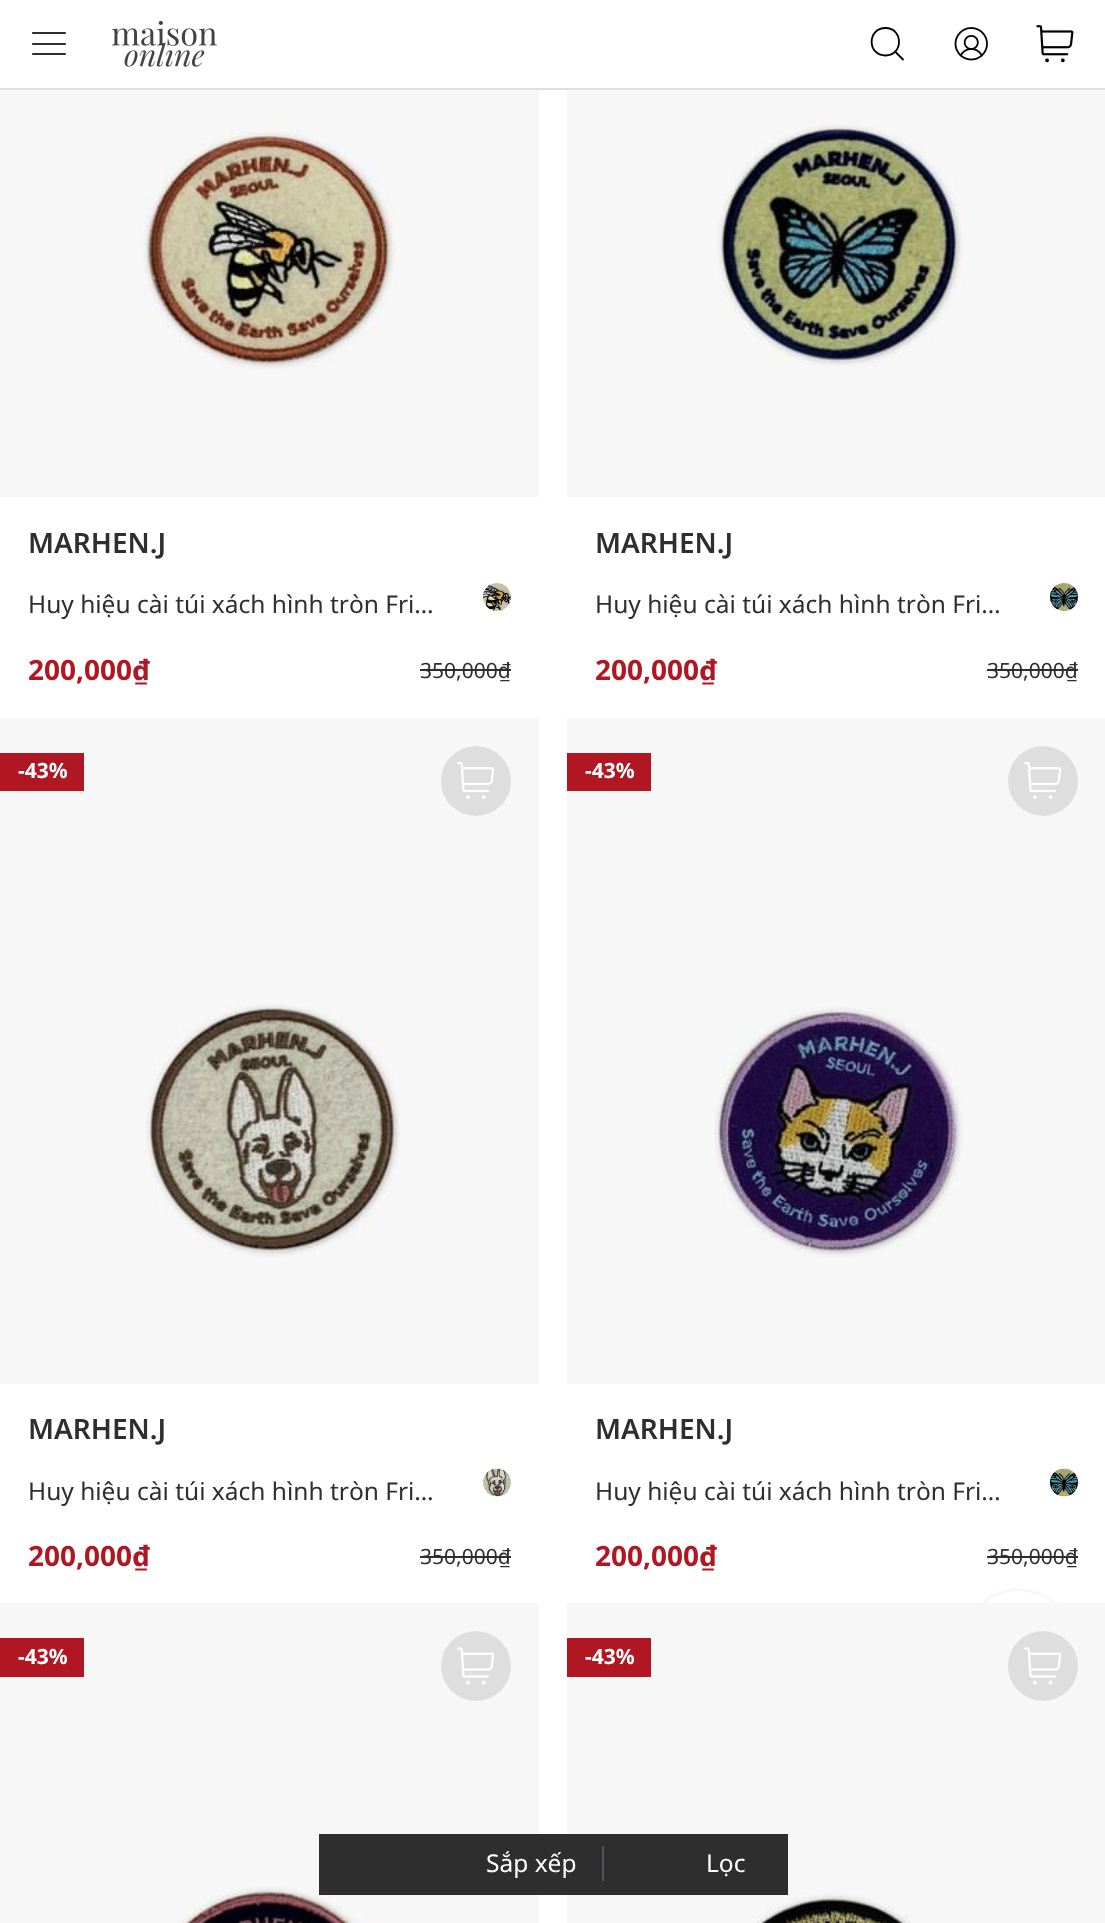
<?xml version="1.0" encoding="UTF-8"?>
<svg xmlns="http://www.w3.org/2000/svg" xmlns:xlink="http://www.w3.org/1999/xlink" width="1105" height="1923">
  <style>*{font-kerning:none!important;font-variant-ligatures:none!important}</style>
  <rect width="100%" height="100%" fill="#ffffff" />
  <rect y="88" width="1105" height="2" fill="#dfdfdf" />
  <path d="M 33 44 h 32 m -32 -11 h 32 m -32 21 h 32" fill="none" stroke="#2e2e2e" stroke-width="2.2" stroke-linecap="round" stroke-linejoin="round" />
  <image x="112" y="20" width="105" height="47" xlink:href="image1.png" />
  <path d="M 885.5 55.5 c 18 0 18 -27.5 0 -27.5 c -18.5 0 -18.5 27.5 0 27.5 z m 9.5 -4 l 8 8" fill="none" stroke="#000000" stroke-width="1.8" stroke-linecap="round" stroke-linejoin="round" />
  <image x="954" y="27" width="34" height="34" xlink:href="image2.png" />
  <image x="1036" y="25" width="38" height="38" xlink:href="image3.png" />
  <rect y="90" width="539" height="407" fill="#f7f7f7" />
  <image x="138" y="120" width="262" height="249" xlink:href="image4.png" />
  <image x="483" y="583" width="28" height="28" xlink:href="image5.png" />
  <rect x="420" y="669" width="91" height="2" fill="#2e2e2e" />
  <rect x="567" y="90" width="538" height="407" fill="#f7f7f7" />
  <image x="717" y="120" width="250" height="246" xlink:href="image6.png" />
  <image x="1050" y="583" width="28" height="28" xlink:href="image7.png" />
  <rect x="987" y="669" width="91" height="2" fill="#2e2e2e" />
  <rect y="718" width="539" height="666" fill="#f7f7f7" />
  <image x="144" y="1004" width="256" height="253" xlink:href="image8.png" />
  <rect y="753" width="84" height="38" fill="#b01722" />
  <circle cx="476" cy="781" r="35" fill="#dedede" />
  <image x="457" y="761" width="37" height="38" xlink:href="image9.png" />
  <image x="483" y="1468" width="28" height="29" xlink:href="image10.png" />
  <rect x="420" y="1556" width="91" height="2" fill="#2e2e2e" />
  <rect x="567" y="718" width="538" height="666" fill="#f7f7f7" />
  <image x="713" y="1007" width="251" height="250" xlink:href="image11.png" />
  <rect x="567" y="753" width="84" height="38" fill="#b01722" />
  <circle cx="1043" cy="781" r="35" fill="#dedede" />
  <image x="1024" y="761" width="37" height="38" xlink:href="image9.png" />
  <image x="1050" y="1468" width="28" height="29" xlink:href="image12.png" />
  <rect x="987" y="1556" width="91" height="2" fill="#2e2e2e" />
  <rect y="1603" width="539" height="320" fill="#f7f7f7" />
  <image x="178" y="1887" width="199" height="36" xlink:href="image13.png" />
  <rect y="1638" width="84" height="39" fill="#b01722" />
  <circle cx="476" cy="1666" r="35" fill="#dedede" />
  <image x="457" y="1647" width="37" height="38" xlink:href="image14.png" />
  <rect x="966" y="1593" width="105" height="105" rx="52.5" fill="#000000" fill-opacity="0.16" filter="blur(3.5px)" />
  <circle cx="1018.5" cy="1643.5" r="52.5" fill="#ffffff" />
  <rect x="567" y="1603" width="538" height="320" fill="#f7f7f7" />
  <image x="756" y="1893" width="155" height="30" xlink:href="image15.png" />
  <rect x="567" y="1638" width="84" height="39" fill="#b01722" />
  <circle cx="1043" cy="1666" r="35" fill="#dedede" />
  <image x="1024" y="1647" width="37" height="38" xlink:href="image14.png" />
  <rect x="319" y="1834" width="469" height="61" fill="#2e2e2e" />
  <rect x="602" y="1846" width="2" height="35" fill="#50555b" />
  <text x="28" y="553" style="font-family: Noto Sans; font-size: 28px; font-weight: 600; fill: #2e2e2e">MARHEN.J</text>
  <text x="28" y="613" style="font-family: Noto Sans; font-size: 24.5px; fill: #2e2e2e">Huy hiệu cài túi xách hình tròn Fri…</text>
  <text x="28" y="680" style="font-family: Noto Sans; font-size: 28px; font-weight: bold; fill: #b01722">200,000₫</text>
  <text x="420" y="678" style="font-family: Noto Sans; font-size: 21px; fill: #2e2e2e">350,000₫</text>
  <text x="595" y="553" style="font-family: Noto Sans; font-size: 28px; font-weight: 600; fill: #2e2e2e">MARHEN.J</text>
  <text x="595" y="613" style="font-family: Noto Sans; font-size: 24.5px; fill: #2e2e2e">Huy hiệu cài túi xách hình tròn Fri…</text>
  <text x="595" y="680" style="font-family: Noto Sans; font-size: 28px; font-weight: bold; fill: #b01722">200,000₫</text>
  <text x="987" y="678" style="font-family: Noto Sans; font-size: 21px; fill: #2e2e2e">350,000₫</text>
  <text x="18" y="778" style="font-family: Noto Sans; font-size: 21px; font-weight: bold; fill: #ffffff">-43%</text>
  <text x="28" y="1439" style="font-family: Noto Sans; font-size: 28px; font-weight: 600; fill: #2e2e2e">MARHEN.J</text>
  <text x="28" y="1500" style="font-family: Noto Sans; font-size: 24.5px; fill: #2e2e2e">Huy hiệu cài túi xách hình tròn Fri…</text>
  <text x="28" y="1566" style="font-family: Noto Sans; font-size: 28px; font-weight: bold; fill: #b01722">200,000₫</text>
  <text x="420" y="1564" style="font-family: Noto Sans; font-size: 21px; fill: #2e2e2e">350,000₫</text>
  <text x="585" y="778" style="font-family: Noto Sans; font-size: 21px; font-weight: bold; fill: #ffffff">-43%</text>
  <text x="595" y="1439" style="font-family: Noto Sans; font-size: 28px; font-weight: 600; fill: #2e2e2e">MARHEN.J</text>
  <text x="595" y="1500" style="font-family: Noto Sans; font-size: 24.5px; fill: #2e2e2e">Huy hiệu cài túi xách hình tròn Fri…</text>
  <text x="595" y="1566" style="font-family: Noto Sans; font-size: 28px; font-weight: bold; fill: #b01722">200,000₫</text>
  <text x="987" y="1564" style="font-family: Noto Sans; font-size: 21px; fill: #2e2e2e">350,000₫</text>
  <text x="18" y="1664" style="font-family: Noto Sans; font-size: 21px; font-weight: bold; fill: #ffffff">-43%</text>
  <text x="585" y="1664" style="font-family: Noto Sans; font-size: 21px; font-weight: bold; fill: #ffffff">-43%</text>
  <text x="486" y="1872" style="font-family: Noto Sans; font-size: 24.5px; fill: #ffffff">Sắp xếp</text>
  <text x="706" y="1872" style="font-family: Noto Sans; font-size: 24.5px; fill: #ffffff">Lọc</text>
</svg>
